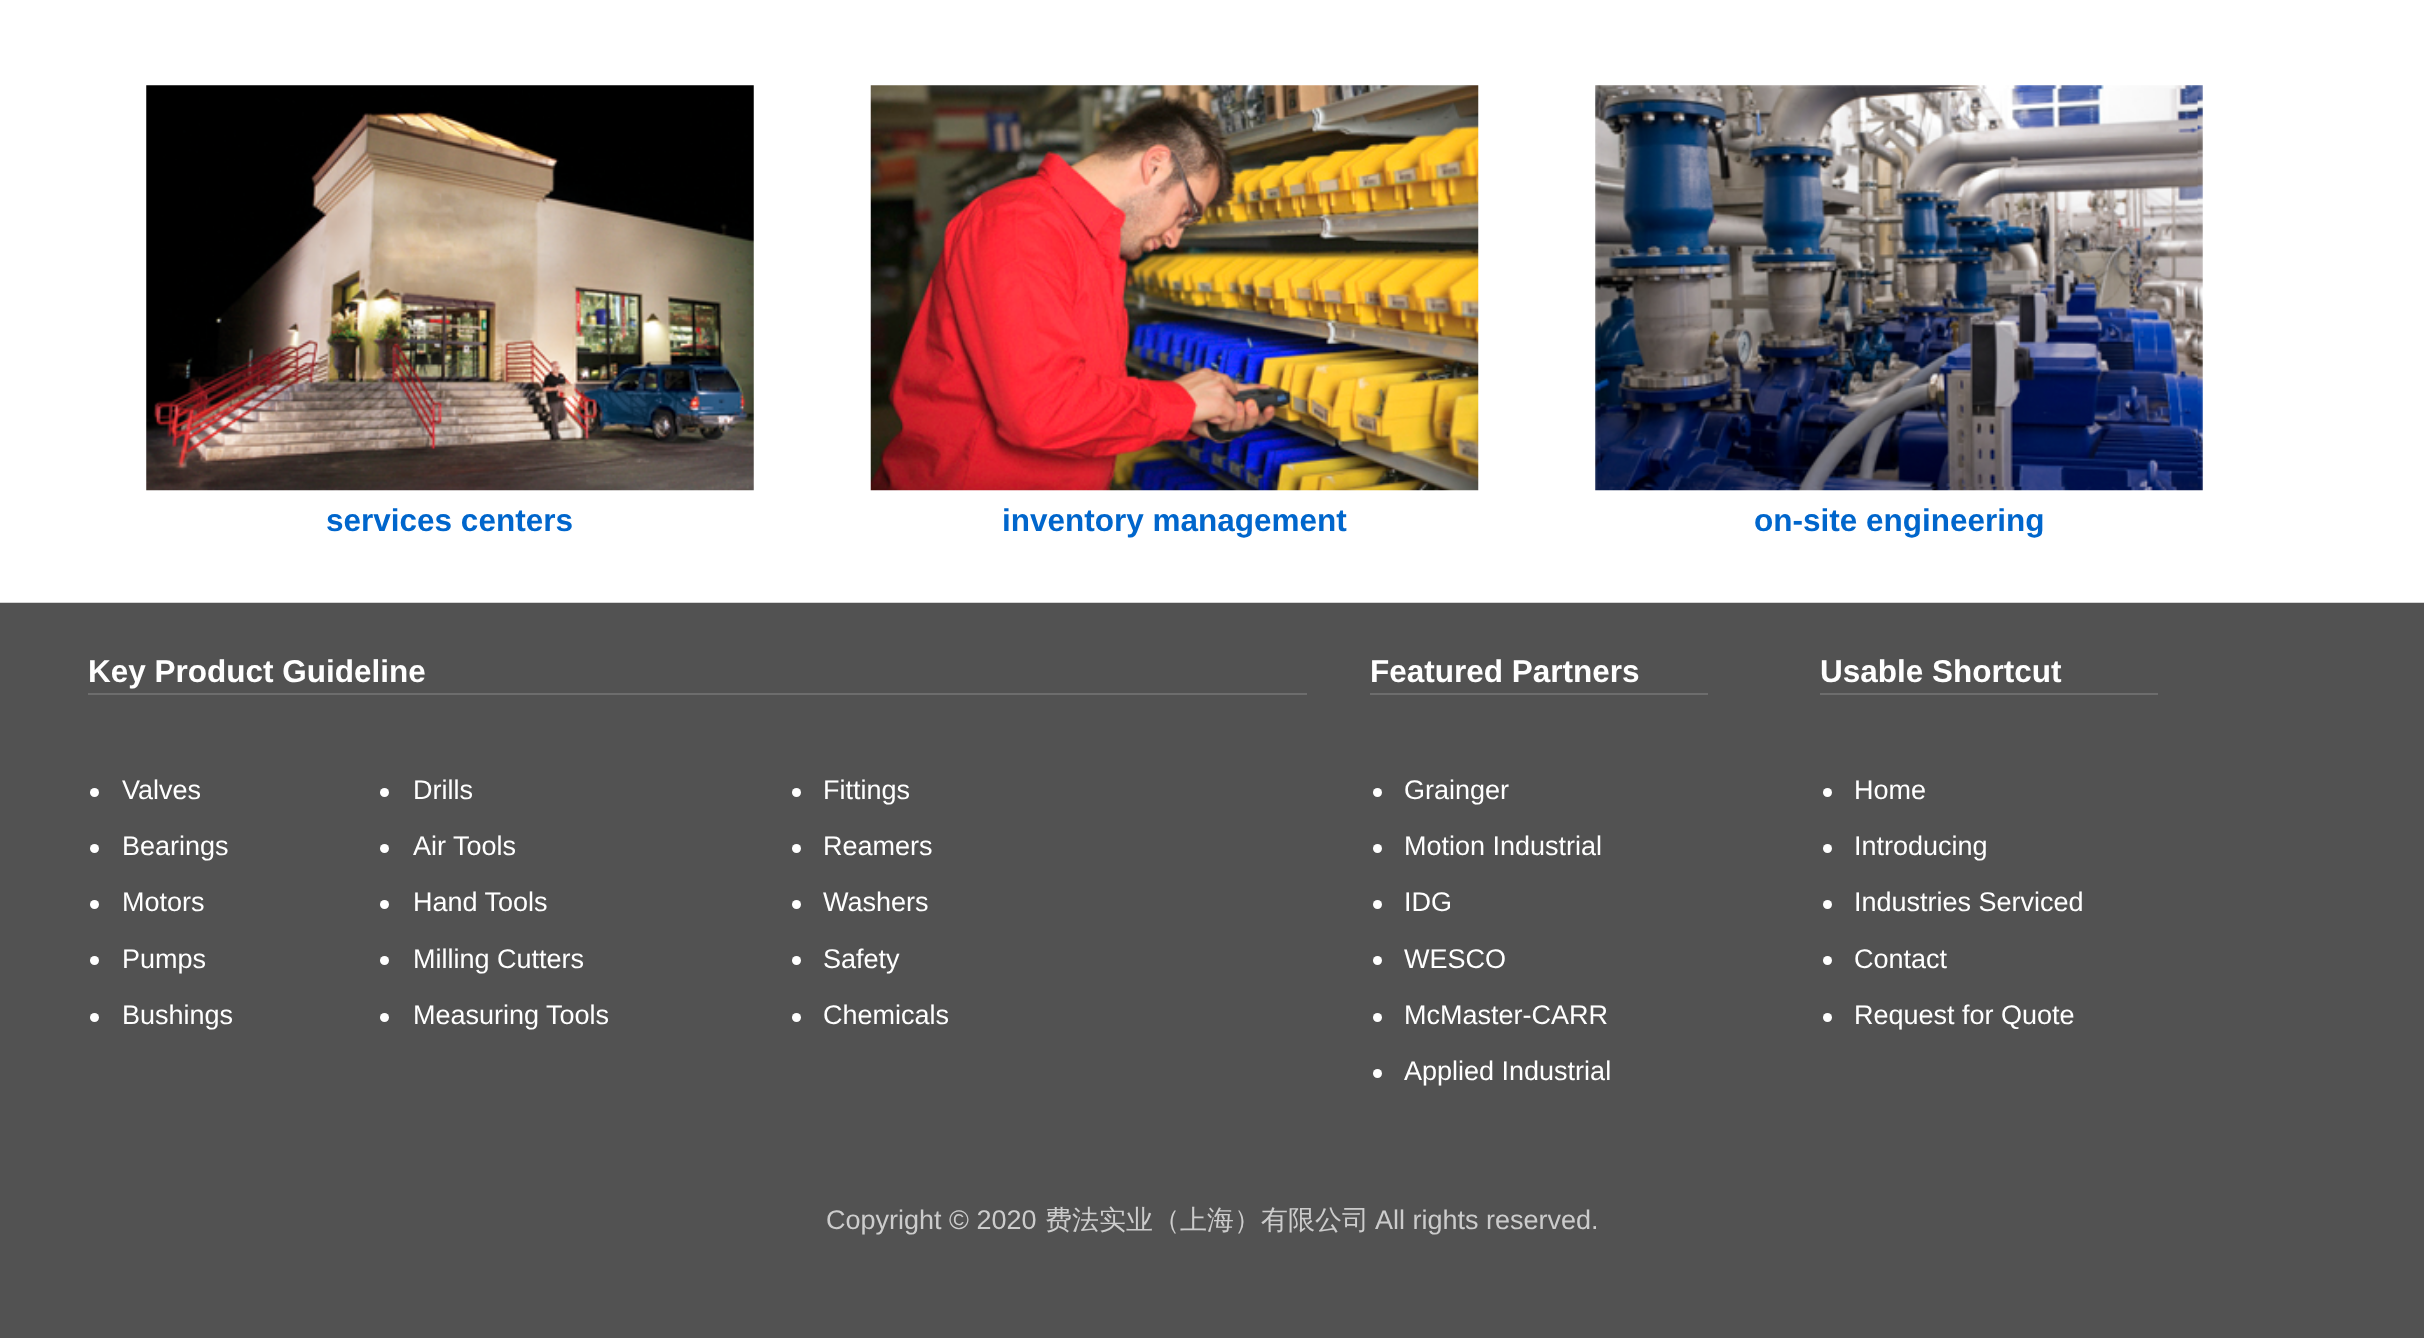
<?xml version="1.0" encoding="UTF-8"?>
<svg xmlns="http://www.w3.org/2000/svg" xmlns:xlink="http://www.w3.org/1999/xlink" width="2424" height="1338">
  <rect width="100%" height="100%" fill="#ffffff" />
  <image x="146" y="85" width="608" height="406" xlink:href="image1.png" />
  <image x="870" y="85" width="609" height="406" xlink:href="image2.png" />
  <image x="1595" y="85" width="608" height="406" xlink:href="image3.png" />
  <rect y="603" width="2424" height="735" fill="#525252" />
  <rect y="602" width="2424" height="1" fill="#d3d3d3" />
  <rect x="88" y="693" width="1219" height="2" fill="#6d6d6d" />
  <circle cx="94.5" cy="792.5" r="4.5" fill="#ffffff" />
  <circle cx="94.5" cy="848.5" r="4.5" fill="#ffffff" />
  <circle cx="94.5" cy="904.5" r="4.5" fill="#ffffff" />
  <circle cx="94.5" cy="960.5" r="4.5" fill="#ffffff" />
  <circle cx="94.5" cy="1017.5" r="4.5" fill="#ffffff" />
  <circle cx="384.5" cy="792.5" r="4.5" fill="#ffffff" />
  <circle cx="384.5" cy="848.5" r="4.5" fill="#ffffff" />
  <circle cx="384.5" cy="904.5" r="4.5" fill="#ffffff" />
  <circle cx="384.5" cy="960.5" r="4.5" fill="#ffffff" />
  <circle cx="384.5" cy="1017.5" r="4.5" fill="#ffffff" />
  <circle cx="796.5" cy="792.5" r="4.5" fill="#ffffff" />
  <circle cx="796.5" cy="848.5" r="4.5" fill="#ffffff" />
  <circle cx="796.5" cy="904.5" r="4.5" fill="#ffffff" />
  <circle cx="796.5" cy="960.5" r="4.5" fill="#ffffff" />
  <circle cx="796.5" cy="1017.5" r="4.5" fill="#ffffff" />
  <rect x="1370" y="693" width="338" height="2" fill="#6d6d6d" />
  <circle cx="1377.5" cy="792.5" r="4.5" fill="#ffffff" />
  <circle cx="1377.5" cy="848.5" r="4.5" fill="#ffffff" />
  <circle cx="1377.5" cy="904.5" r="4.5" fill="#ffffff" />
  <circle cx="1377.5" cy="960.5" r="4.5" fill="#ffffff" />
  <circle cx="1377.5" cy="1017.5" r="4.5" fill="#ffffff" />
  <circle cx="1377.5" cy="1073.5" r="4.5" fill="#ffffff" />
  <rect x="1820" y="693" width="338" height="2" fill="#6d6d6d" />
  <circle cx="1827.5" cy="792.5" r="4.5" fill="#ffffff" />
  <circle cx="1827.5" cy="848.5" r="4.5" fill="#ffffff" />
  <circle cx="1827.5" cy="904.5" r="4.5" fill="#ffffff" />
  <circle cx="1827.5" cy="960.5" r="4.5" fill="#ffffff" />
  <circle cx="1827.5" cy="1017.5" r="4.5" fill="#ffffff" />
  <text x="326" y="531" style="font-family: Liberation Sans; font-size: 31.5px; font-weight: bold; fill: #0066cc">services centers</text>
  <text x="1002" y="531" style="font-family: Liberation Sans; font-size: 31.5px; font-weight: bold; fill: #0066cc">inventory management</text>
  <text x="1754" y="531" style="font-family: Liberation Sans; font-size: 31.5px; font-weight: bold; fill: #0066cc">on-site engineering</text>
  <text x="88" y="682" style="font-family: Liberation Sans; font-size: 31.5px; font-weight: bold; fill: #ffffff">Key Product Guideline</text>
  <text x="122" y="799" style="font-family: Liberation Sans; font-size: 27px; fill: #ffffff">Valves</text>
  <text x="122" y="855" style="font-family: Liberation Sans; font-size: 27px; fill: #ffffff">Bearings</text>
  <text x="122" y="911" style="font-family: Liberation Sans; font-size: 27px; fill: #ffffff">Motors</text>
  <text x="122" y="968" style="font-family: Liberation Sans; font-size: 27px; fill: #ffffff">Pumps</text>
  <text x="122" y="1024" style="font-family: Liberation Sans; font-size: 27px; fill: #ffffff">Bushings</text>
  <text x="413" y="799" style="font-family: Liberation Sans; font-size: 27px; fill: #ffffff">Drills</text>
  <text x="413" y="855" style="font-family: Liberation Sans; font-size: 27px; fill: #ffffff">Air Tools</text>
  <text x="413" y="911" style="font-family: Liberation Sans; font-size: 27px; fill: #ffffff">Hand Tools</text>
  <text x="413" y="968" style="font-family: Liberation Sans; font-size: 27px; fill: #ffffff">Milling Cutters</text>
  <text x="413" y="1024" style="font-family: Liberation Sans; font-size: 27px; fill: #ffffff">Measuring Tools</text>
  <text x="823" y="799" style="font-family: Liberation Sans; font-size: 27px; fill: #ffffff">Fittings</text>
  <text x="823" y="855" style="font-family: Liberation Sans; font-size: 27px; fill: #ffffff">Reamers</text>
  <text x="823" y="911" style="font-family: Liberation Sans; font-size: 27px; fill: #ffffff">Washers</text>
  <text x="823" y="968" style="font-family: Liberation Sans; font-size: 27px; fill: #ffffff">Safety</text>
  <text x="823" y="1024" style="font-family: Liberation Sans; font-size: 27px; fill: #ffffff">Chemicals</text>
  <text x="1370" y="682" style="font-family: Liberation Sans; font-size: 31.5px; font-weight: bold; fill: #ffffff">Featured Partners</text>
  <text x="1404" y="799" style="font-family: Liberation Sans; font-size: 27px; fill: #ffffff">Grainger</text>
  <text x="1404" y="855" style="font-family: Liberation Sans; font-size: 27px; fill: #ffffff">Motion Industrial</text>
  <text x="1404" y="911" style="font-family: Liberation Sans; font-size: 27px; fill: #ffffff">IDG</text>
  <text x="1404" y="968" style="font-family: Liberation Sans; font-size: 27px; fill: #ffffff">WESCO</text>
  <text x="1404" y="1024" style="font-family: Liberation Sans; font-size: 27px; fill: #ffffff">McMaster-CARR</text>
  <text x="1404" y="1080" style="font-family: Liberation Sans; font-size: 27px; fill: #ffffff">Applied Industrial</text>
  <text x="1820" y="682" style="font-family: Liberation Sans; font-size: 31.5px; font-weight: bold; fill: #ffffff">Usable Shortcut</text>
  <text x="1854" y="799" style="font-family: Liberation Sans; font-size: 27px; fill: #ffffff">Home</text>
  <text x="1854" y="855" style="font-family: Liberation Sans; font-size: 27px; fill: #ffffff">Introducing</text>
  <text x="1854" y="911" style="font-family: Liberation Sans; font-size: 27px; fill: #ffffff">Industries Serviced</text>
  <text x="1854" y="968" style="font-family: Liberation Sans; font-size: 27px; fill: #ffffff">Contact</text>
  <text x="1854" y="1024" style="font-family: Liberation Sans; font-size: 27px; fill: #ffffff">Request for Quote</text>
  <text x="826" y="1229" style="font-family: Liberation Sans; font-size: 27px; fill: #cccccc">Copyright © 2020</text>
  <text x="1045" y="1229" style="font-family: WenQuanYi Zen Hei; font-size: 27px; font-weight: 500; fill: #cccccc">费法实业（上海）有限公司</text>
  <text x="1375" y="1229" style="font-family: Liberation Sans; font-size: 27px; fill: #cccccc">All rights reserved.</text>
</svg>
